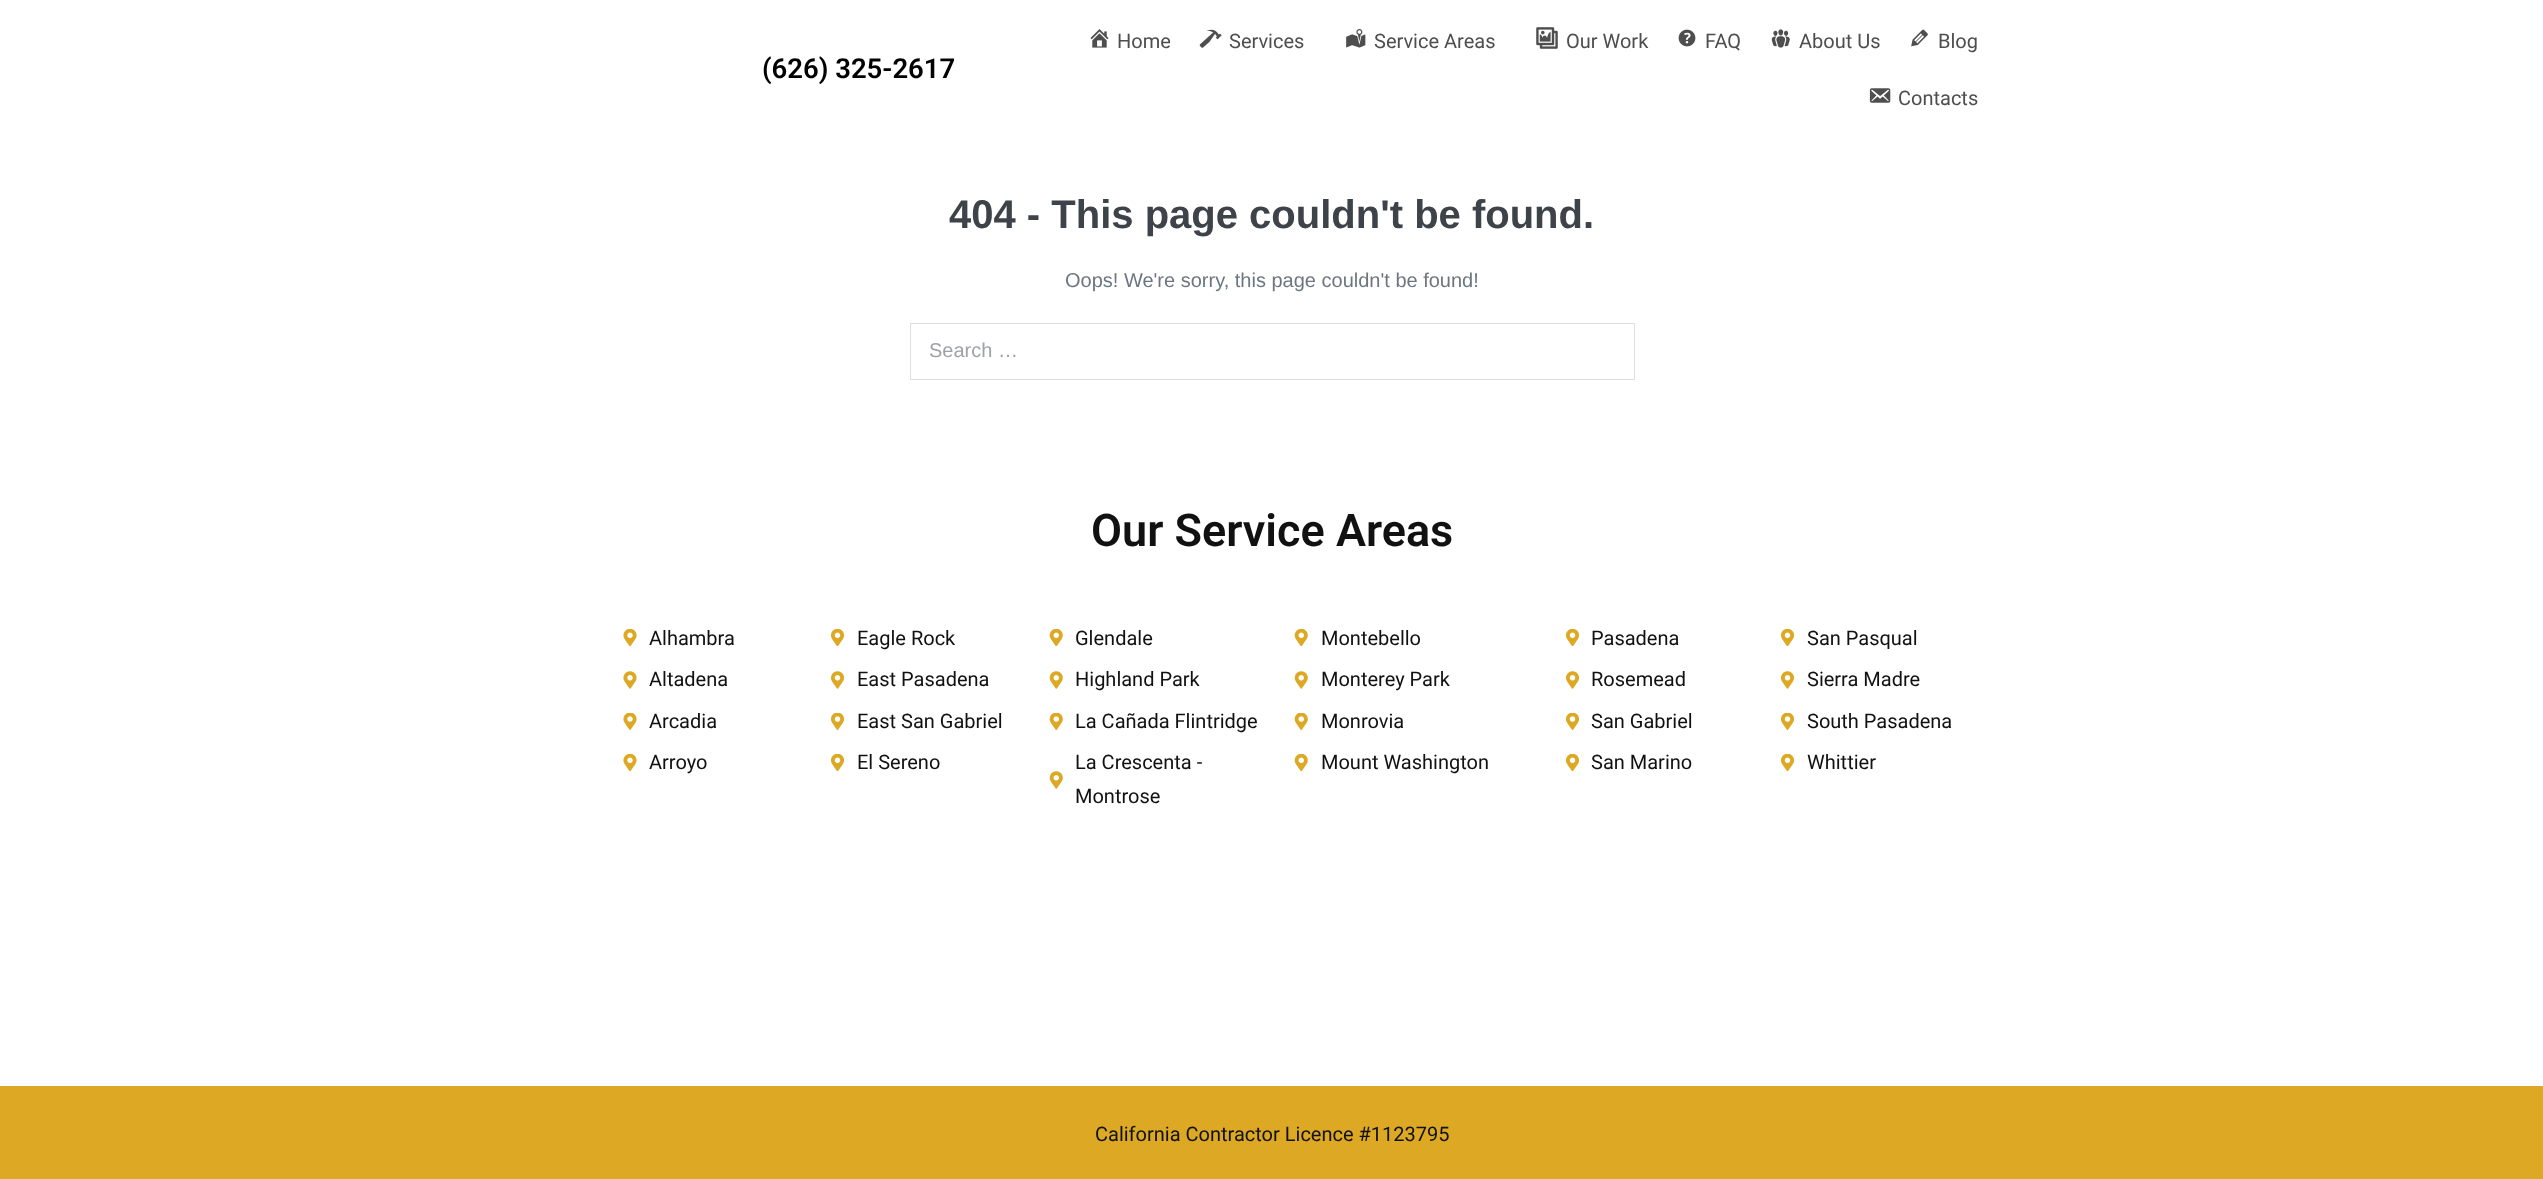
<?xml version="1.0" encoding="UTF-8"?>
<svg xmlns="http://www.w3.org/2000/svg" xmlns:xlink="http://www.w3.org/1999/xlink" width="2543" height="1179">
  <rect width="100%" height="100%" fill="#ffffff" />
  <image x="1090" y="29" width="19" height="19" xlink:href="image1.png" />
  <image x="1199" y="29" width="23" height="19" xlink:href="image2.png" />
  <image x="1346" y="29" width="20" height="19" xlink:href="image3.png" />
  <image x="1536" y="27" width="22" height="22" xlink:href="image4.png" />
  <image x="1678" y="29" width="18" height="18" xlink:href="image5.png" />
  <image x="1771" y="29" width="19" height="19" xlink:href="image6.png" />
  <image x="1911" y="29" width="17" height="18" xlink:href="image7.png" />
  <image x="1869" y="88" width="22" height="15" xlink:href="image8.png" />
  <rect x="910.5" y="323.5" width="724" height="56" fill="none" stroke="#dedee5" />
  <image x="623" y="629" width="14" height="17" xlink:href="image9.png" />
  <image x="623" y="671" width="14" height="18" xlink:href="image10.png" />
  <image x="623" y="713" width="14" height="17" xlink:href="image11.png" />
  <image x="623" y="754" width="14" height="17" xlink:href="image9.png" />
  <image x="830" y="629" width="15" height="17" xlink:href="image12.png" />
  <image x="830" y="671" width="15" height="18" xlink:href="image13.png" />
  <image x="831" y="713" width="13" height="17" xlink:href="image14.png" />
  <image x="830" y="754" width="15" height="17" xlink:href="image12.png" />
  <image x="1049" y="629" width="14" height="17" xlink:href="image15.png" />
  <image x="1049" y="671" width="14" height="18" xlink:href="image16.png" />
  <image x="1049" y="713" width="14" height="17" xlink:href="image17.png" />
  <image x="1049" y="771" width="14" height="18" xlink:href="image16.png" />
  <image x="1294" y="629" width="14" height="17" xlink:href="image15.png" />
  <image x="1294" y="671" width="14" height="18" xlink:href="image16.png" />
  <image x="1294" y="713" width="14" height="17" xlink:href="image17.png" />
  <image x="1294" y="754" width="14" height="17" xlink:href="image15.png" />
  <image x="1565" y="629" width="15" height="17" xlink:href="image12.png" />
  <image x="1565" y="671" width="15" height="18" xlink:href="image13.png" />
  <image x="1566" y="713" width="13" height="17" xlink:href="image14.png" />
  <image x="1565" y="754" width="15" height="17" xlink:href="image12.png" />
  <image x="1780" y="629" width="15" height="17" xlink:href="image12.png" />
  <image x="1780" y="671" width="15" height="18" xlink:href="image13.png" />
  <image x="1781" y="713" width="13" height="17" xlink:href="image14.png" />
  <image x="1780" y="754" width="15" height="17" xlink:href="image12.png" />
  <rect y="1086" width="2543" height="93" fill="#dda924" />
  <text x="762" y="78" style="font-family: Roboto; font-size: 27.5px; font-weight: 600; fill: #000000">(626) 325-2617</text>
  <text x="1117" y="48" style="font-family: Roboto; font-size: 20px; fill: #4e4e4e">Home</text>
  <text x="1229" y="48" style="font-family: Roboto; font-size: 20px; fill: #4e4e4e">Services</text>
  <text x="1374" y="48" style="font-family: Roboto; font-size: 20px; fill: #4e4e4e">Service Areas</text>
  <text x="1566" y="48" style="font-family: Roboto; font-size: 20px; fill: #4e4e4e">Our Work</text>
  <text x="1705" y="48" style="font-family: Roboto; font-size: 20px; fill: #4e4e4e">FAQ</text>
  <text x="1799" y="48" style="font-family: Roboto; font-size: 20px; fill: #4e4e4e">About Us</text>
  <text x="1938" y="48" style="font-family: Roboto; font-size: 20px; fill: #4e4e4e">Blog</text>
  <text x="1898" y="105" style="font-family: Roboto; font-size: 20px; fill: #4e4e4e">Contacts</text>
  <text x="949" y="228" style="font-family: Liberation Sans; font-size: 40px; font-weight: bold; fill: #3e4349">404 - This page couldn't be found.</text>
  <text x="1065" y="287" style="font-family: Liberation Sans; font-size: 20px; fill: #6d7680">Oops! We're sorry, this page couldn't be found!</text>
  <text x="929" y="357" style="font-family: Liberation Sans; font-size: 20px; fill: #9fa1a4">Search …</text>
  <text x="1091" y="546" style="font-family: Roboto; font-size: 45px; font-weight: 600; fill: #111111">Our Service Areas</text>
  <text x="649" y="645" style="font-family: Roboto; font-size: 20px; fill: #111111">Alhambra</text>
  <text x="649" y="686" style="font-family: Roboto; font-size: 20px; fill: #111111">Altadena</text>
  <text x="649" y="728" style="font-family: Roboto; font-size: 20px; fill: #111111">Arcadia</text>
  <text x="649" y="769" style="font-family: Roboto; font-size: 20px; fill: #111111">Arroyo</text>
  <text x="857" y="645" style="font-family: Roboto; font-size: 20px; fill: #111111">Eagle Rock</text>
  <text x="857" y="686" style="font-family: Roboto; font-size: 20px; fill: #111111">East Pasadena</text>
  <text x="857" y="728" style="font-family: Roboto; font-size: 20px; fill: #111111">East San Gabriel</text>
  <text x="857" y="769" style="font-family: Roboto; font-size: 20px; fill: #111111">El Sereno</text>
  <text x="1075" y="645" style="font-family: Roboto; font-size: 20px; fill: #111111">Glendale</text>
  <text x="1075" y="686" style="font-family: Roboto; font-size: 20px; fill: #111111">Highland Park</text>
  <text x="1075" y="728" style="font-family: Roboto; font-size: 20px; fill: #111111">La Cañada Flintridge</text>
  <text x="1075" y="769" style="font-family: Roboto; font-size: 20px; fill: #111111">La Crescenta -</text>
  <text x="1075" y="803" style="font-family: Roboto; font-size: 20px; fill: #111111">Montrose</text>
  <text x="1321" y="645" style="font-family: Roboto; font-size: 20px; fill: #111111">Montebello</text>
  <text x="1321" y="686" style="font-family: Roboto; font-size: 20px; fill: #111111">Monterey Park</text>
  <text x="1321" y="728" style="font-family: Roboto; font-size: 20px; fill: #111111">Monrovia</text>
  <text x="1321" y="769" style="font-family: Roboto; font-size: 20px; fill: #111111">Mount Washington</text>
  <text x="1591" y="645" style="font-family: Roboto; font-size: 20px; fill: #111111">Pasadena</text>
  <text x="1591" y="686" style="font-family: Roboto; font-size: 20px; fill: #111111">Rosemead</text>
  <text x="1591" y="728" style="font-family: Roboto; font-size: 20px; fill: #111111">San Gabriel</text>
  <text x="1591" y="769" style="font-family: Roboto; font-size: 20px; fill: #111111">San Marino</text>
  <text x="1807" y="645" style="font-family: Roboto; font-size: 20px; fill: #111111">San Pasqual</text>
  <text x="1807" y="686" style="font-family: Roboto; font-size: 20px; fill: #111111">Sierra Madre</text>
  <text x="1807" y="728" style="font-family: Roboto; font-size: 20px; fill: #111111">South Pasadena</text>
  <text x="1807" y="769" style="font-family: Roboto; font-size: 20px; fill: #111111">Whittier</text>
  <text x="1095" y="1141" style="font-family: Roboto; font-size: 20px; fill: #111111">California Contractor Licence #1123795</text>
</svg>
